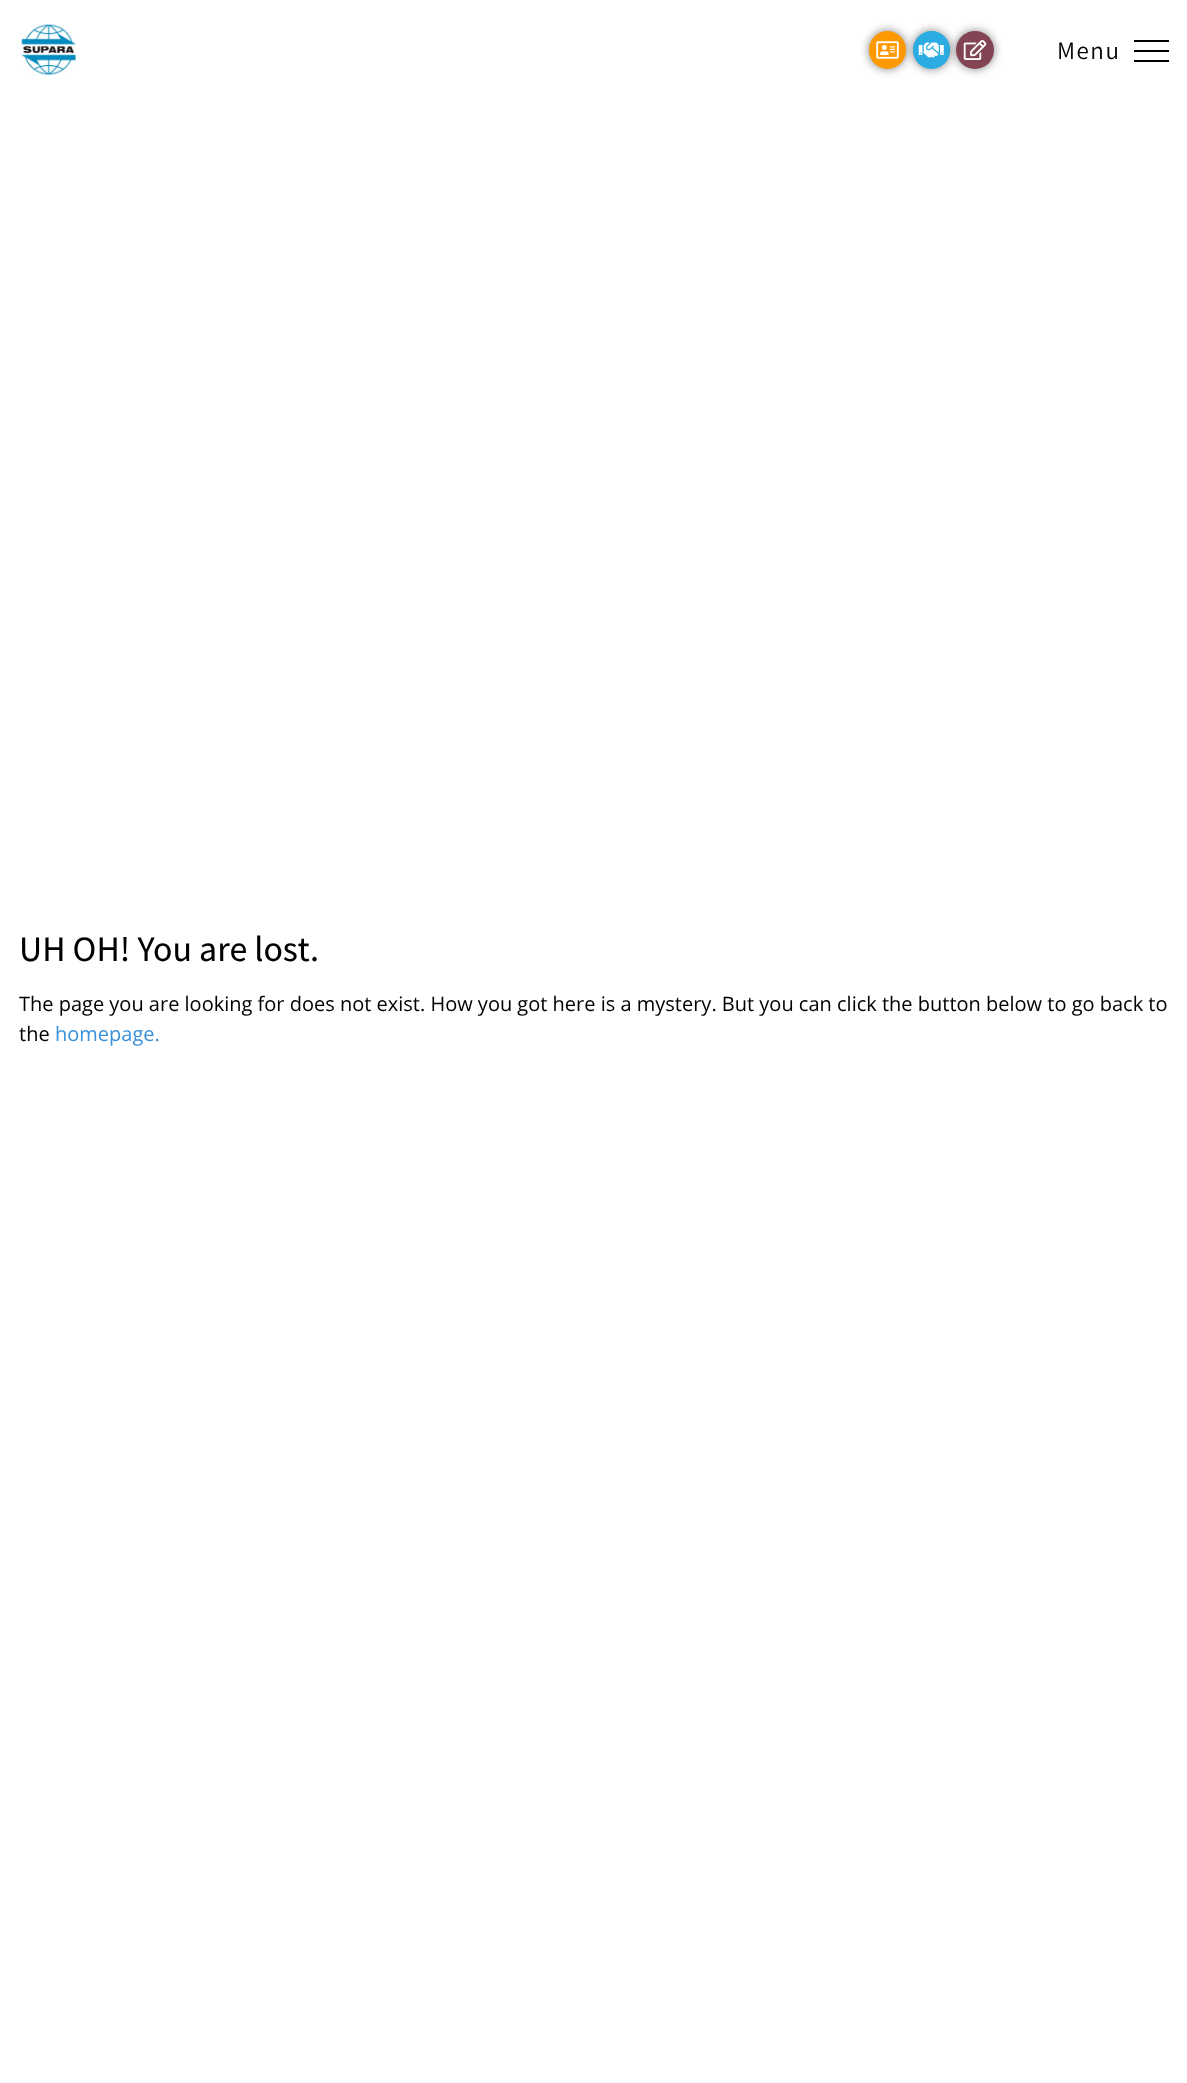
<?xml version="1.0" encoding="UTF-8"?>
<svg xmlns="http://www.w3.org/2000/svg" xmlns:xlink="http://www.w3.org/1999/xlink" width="1187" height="2083">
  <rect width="100%" height="100%" fill="#ffffff" />
  <rect x="869" y="31" width="37" height="38" rx="18.5" fill="#000000" fill-opacity="0.5" filter="blur(5px)" />
  <rect x="869" y="31" width="37" height="38" rx="18.5" fill="#ff9900" />
  <image x="876" y="41" width="23" height="18" xlink:href="image1.png" />
  <rect x="913" y="31" width="37" height="38" rx="18.5" fill="#000000" fill-opacity="0.5" filter="blur(5px)" />
  <rect x="913" y="31" width="37" height="38" rx="18.5" fill="#2aace2" />
  <image x="918" y="42" width="26" height="16" xlink:href="image2.png" />
  <rect x="956" y="31" width="38" height="38" rx="19" fill="#000000" fill-opacity="0.5" filter="blur(5px)" />
  <circle cx="975" cy="50" r="19" fill="#824352" />
  <image x="963" y="40" width="24" height="20" xlink:href="image3.png" />
  <image x="21" y="24" width="55" height="52" xlink:href="image4.png" />
  <rect x="1134" y="40" width="35" height="2" fill="#000000" />
  <rect x="1134" y="50" width="35" height="2" fill="#000000" />
  <rect x="1134" y="60" width="35" height="2" fill="#000000" />
  <text x="1057" y="59" style="font-family: Assistant; font-size: 25px; letter-spacing: 1.5px; fill: #000000">Menu</text>
  <text x="19" y="961" style="font-family: Assistant; font-size: 35.75px; font-weight: 500; fill: #000000">UH OH! You are lost.</text>
  <text x="19" y="1011" style="font-family: Open Sans; font-size: 20px; fill: #000000">The page you are looking for does not exist. How you got here is a mystery. But you can click the button below to go back to</text>
  <text x="19" y="1041" style="font-family: Open Sans; font-size: 20px; fill: #000000">the</text>
  <text x="55" y="1041" style="font-family: Open Sans; font-size: 20px; fill: #3a91d9">homepage.</text>
</svg>
